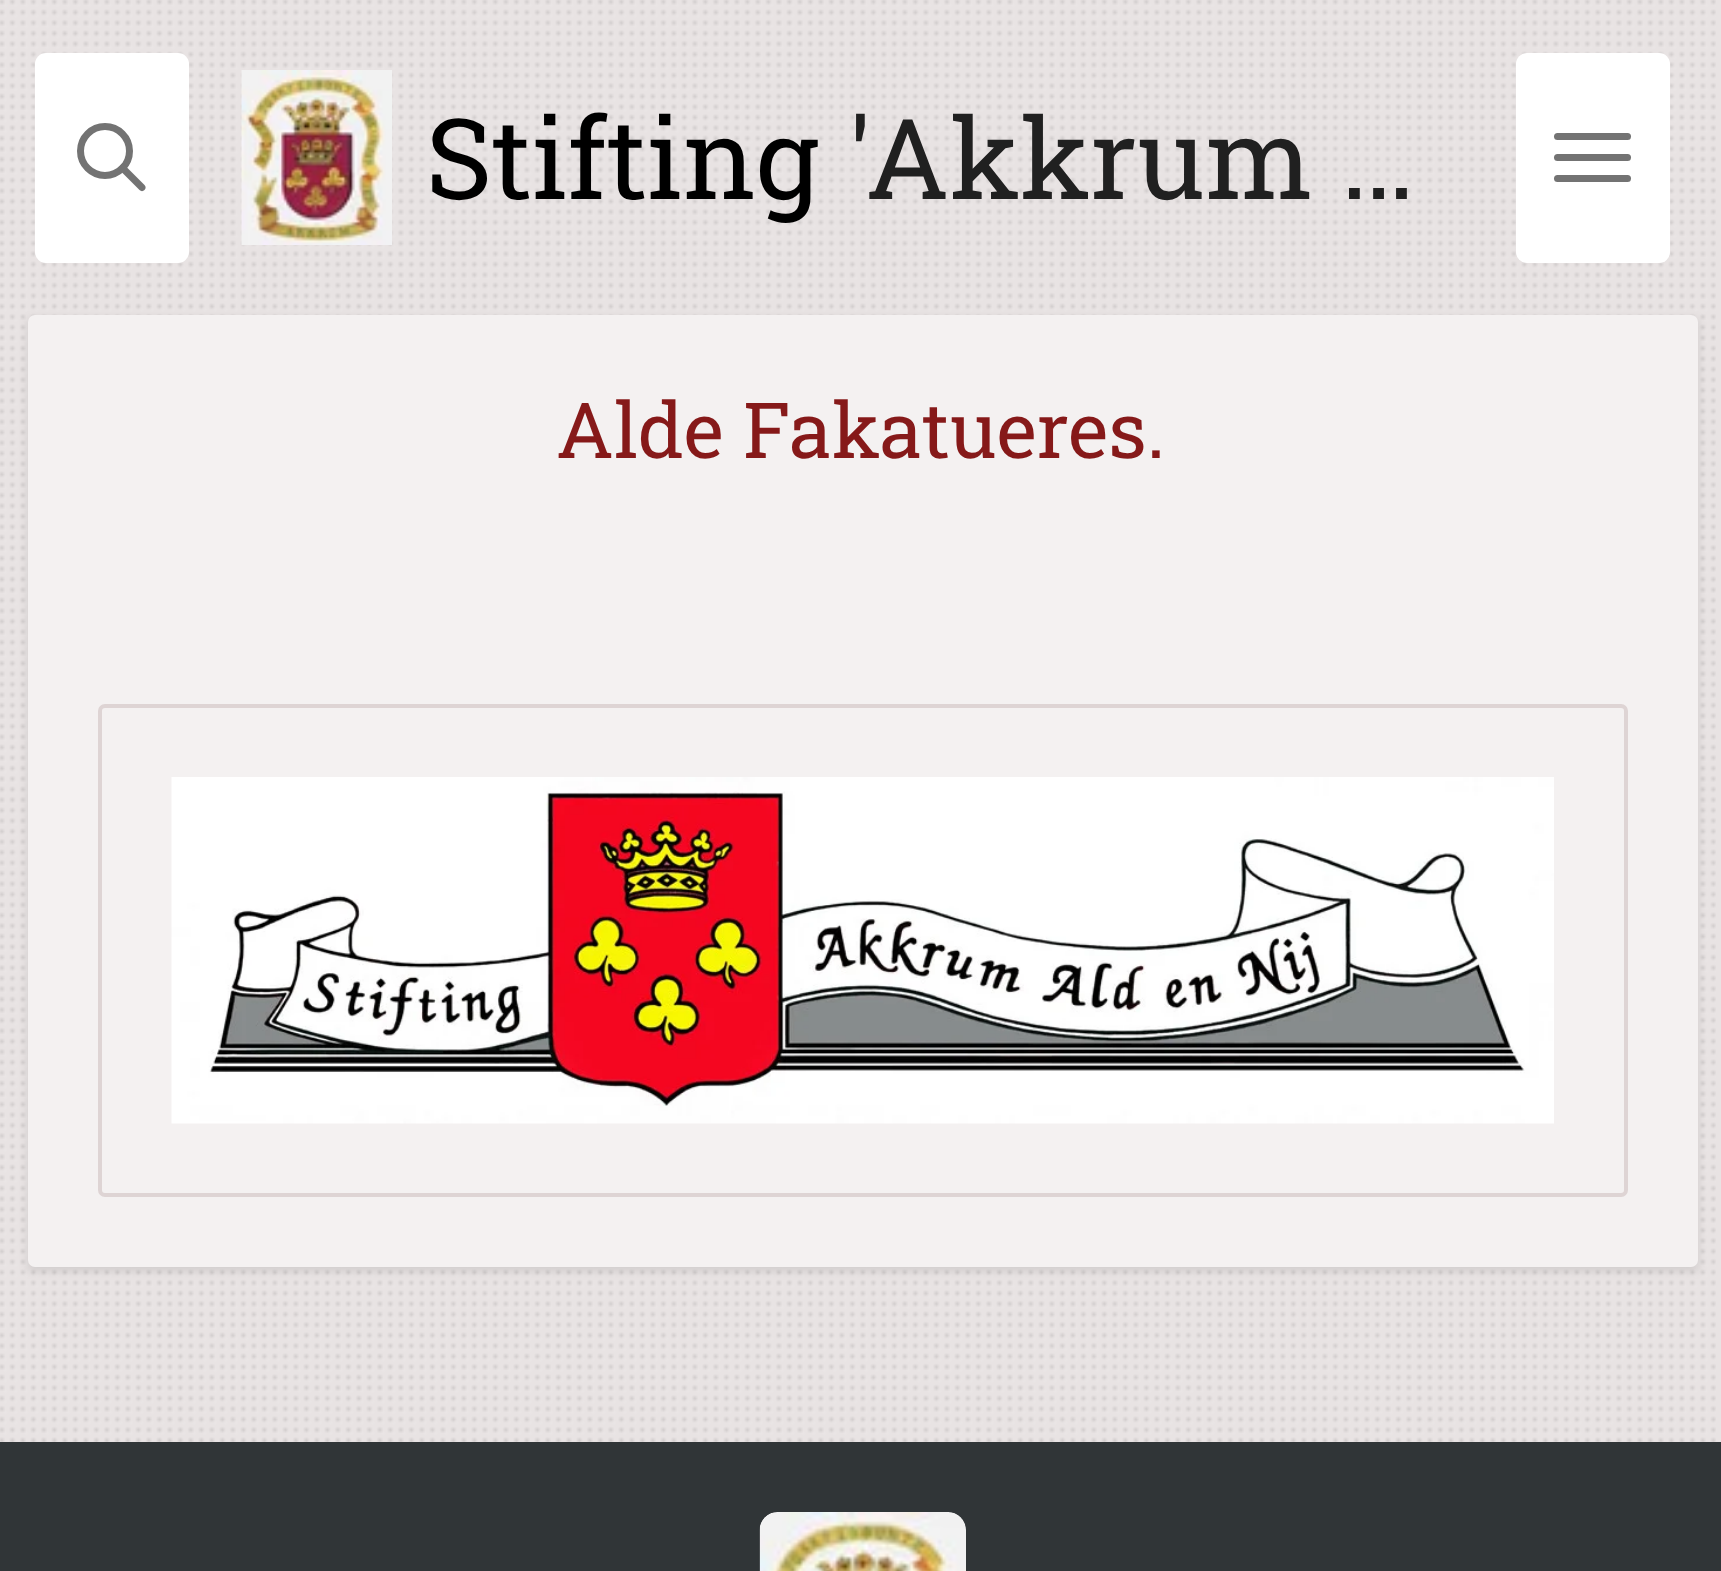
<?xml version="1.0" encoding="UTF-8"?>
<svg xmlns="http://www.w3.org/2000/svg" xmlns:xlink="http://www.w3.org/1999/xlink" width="1721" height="1571">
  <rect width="100%" height="100%" fill="#e8e3e3" />
  <image x="0" y="0" width="1716" height="1442" xlink:href="image1.png" />
  <rect x="35" y="53" width="154" height="210" rx="11" fill="#ffffff" />
  <circle cx="105" cy="151" r="24.5" fill="none" stroke="#737373" stroke-width="7" />
  <path d="M 122.5 163 l 22 22 c 1.5 1.5 1.5 3.5 0 5 c -1.5 1.5 -3.5 1.5 -5 0 l -22 -22 z" fill="#737373" />
  <image x="241" y="70" width="151" height="175" xlink:href="image2.png" />
  <rect x="1516" y="53" width="154" height="210" rx="11" fill="#ffffff" />
  <rect x="1554" y="154" width="77" height="7" rx="3.5" fill="#737373" />
  <rect x="1554" y="133" width="77" height="7" rx="3.5" fill="#737373" />
  <rect x="1554" y="175" width="77" height="7" rx="3.5" fill="#737373" />
  <rect x="28" y="319" width="1670" height="952" fill="#000000" fill-opacity="0.1" filter="blur(5px)" />
  <rect x="28" y="315" width="1670" height="952" rx="7" fill="#f4f1f1" />
  <rect x="100" y="706" width="1526" height="489" rx="5" fill="none" stroke="#ded4d4" stroke-width="4" />
  <image x="171" y="777" width="1383" height="347" xlink:href="image3.png" />
  <rect y="1442" width="1721" height="129" fill="#303537" />
  <image x="759" y="1512" width="207" height="59" xlink:href="image4.png" />
  <text x="426" y="199" style="font-family: Roboto Slab; font-size: 112px; fill: #000000">Stifting</text>
  <text x="847" y="199" style="font-family: Roboto Slab; font-size: 112px; fill: #202020">'Akkrum …</text>
  <text x="556" y="458" style="font-family: Roboto Slab; font-size: 77.25px; fill: #861919">Alde Fakatueres.</text>
</svg>
